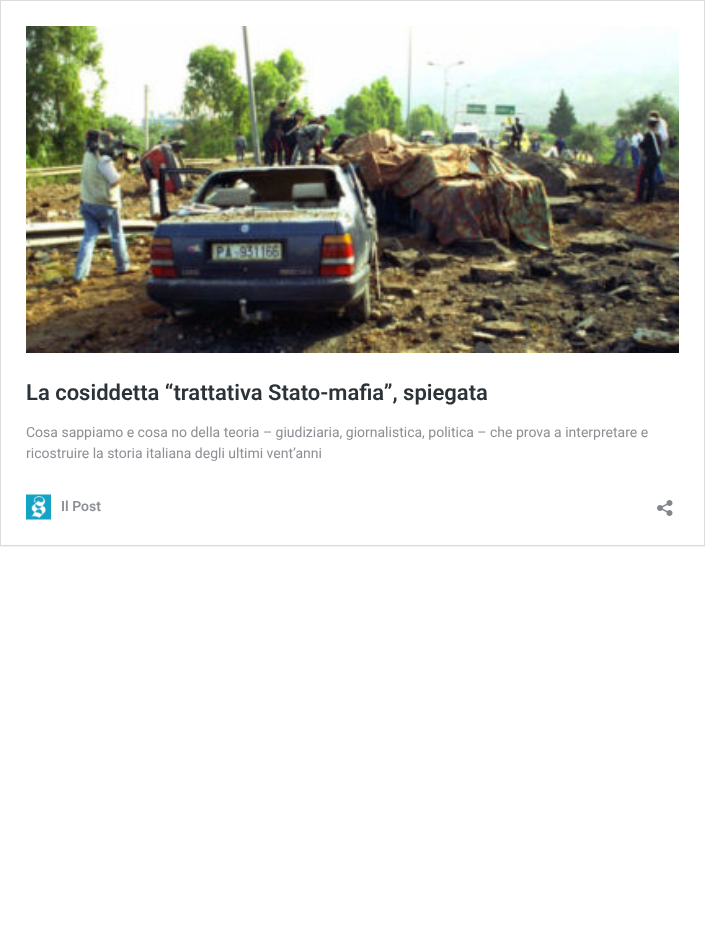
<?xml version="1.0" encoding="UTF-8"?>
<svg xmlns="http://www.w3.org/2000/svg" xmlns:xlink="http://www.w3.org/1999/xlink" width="705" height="945">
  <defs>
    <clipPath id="clip1"><rect x="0" y="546" width="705" height="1" /></clipPath>
  </defs>
  <rect width="100%" height="100%" fill="#ffffff" />
  <g clip-path="url(#clip1)">
    <rect y="1" width="705" height="546" fill="#000000" fill-opacity="0.05" filter="blur(0.5px)" />
  </g>
  <rect x="0.5" y="0.5" width="704" height="545" fill="none" stroke="#dcdcde" />
  <image x="26" y="26" width="653" height="327" xlink:href="image1.png" />
  <image x="26" y="494" width="25" height="26" xlink:href="image2.png" />
  <image x="657" y="500" width="16" height="16" xlink:href="image3.png" />
  <text x="26" y="400" style="font-family: Roboto; font-size: 22px; font-weight: 600; fill: #2c3338">La cosiddetta “trattativa Stato-mafia”, spiegata</text>
  <text x="26" y="437" style="font-family: Roboto; font-size: 14px; fill: #8c8f94">Cosa sappiamo e cosa no della teoria – giudiziaria, giornalistica, politica – che prova a interpretare e</text>
  <text x="26" y="458" style="font-family: Roboto; font-size: 14px; fill: #8c8f94">ricostruire la storia italiana degli ultimi vent’anni</text>
  <text x="61" y="511" style="font-family: Roboto; font-size: 14px; font-weight: 600; fill: #8c8f94">Il Post</text>
</svg>
